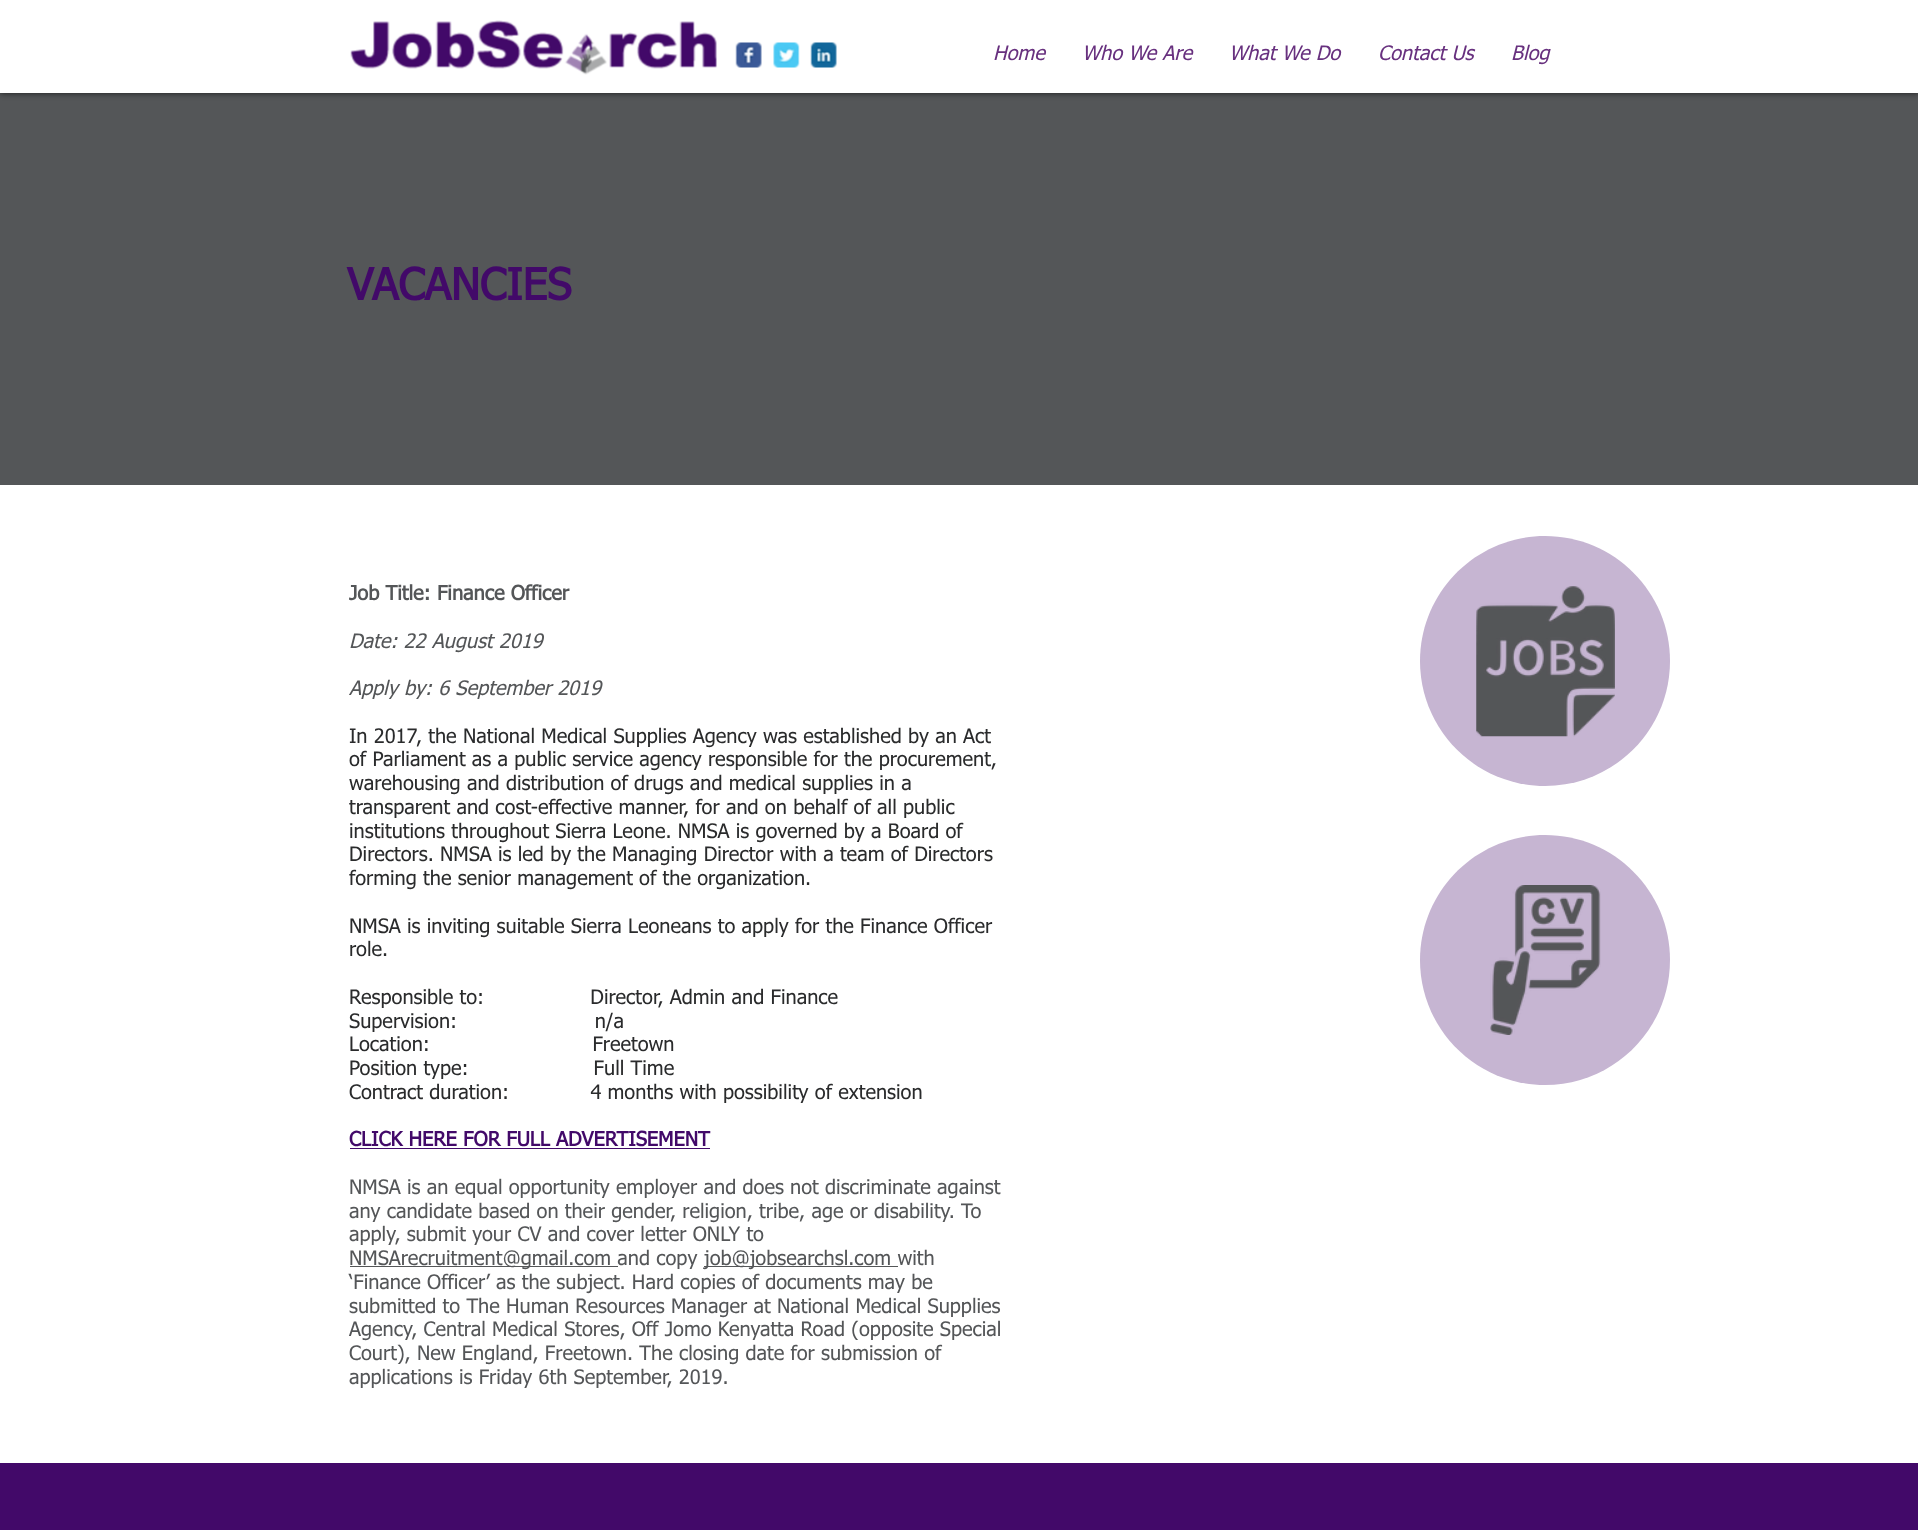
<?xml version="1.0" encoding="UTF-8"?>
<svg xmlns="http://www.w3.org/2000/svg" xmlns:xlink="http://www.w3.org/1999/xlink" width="1918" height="1530">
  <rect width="100%" height="100%" fill="#ffffff" />
  <rect y="93" width="1918" height="392" fill="#545658" />
  <rect width="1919" height="93" fill="#000000" fill-opacity="0.7" filter="blur(3px)" />
  <rect width="1918" height="93" fill="#ffffff" />
  <image x="350" y="20" width="367" height="55" xlink:href="image1.png" />
  <image x="735" y="42" width="27" height="26" xlink:href="image2.png" />
  <image x="773" y="42" width="27" height="26" xlink:href="image3.png" />
  <image x="810" y="42" width="27" height="26" xlink:href="image4.png" />
  <rect x="350" y="1148" width="360" height="1" fill="#420969" />
  <rect x="350" y="1266" width="268" height="1" fill="#545658" />
  <rect x="704" y="1266" width="194" height="1" fill="#545658" />
  <path d="M 1670 661 c 0 69 -56 125 -125 125 c -69 0 -125 -56 -125 -125 c 0 -69 56 -125 125 -125 c 69 0 125 56 125 125 z" fill="#c6b5d2" />
  <image x="1476" y="586" width="139" height="151" xlink:href="image5.png" />
  <path d="M 1670 960 c 0 69 -56 125 -125 125 c -69 0 -125 -56 -125 -125 c 0 -69 56 -125 125 -125 c 69 0 125 56 125 125 z" fill="#c6b5d2" />
  <image x="1490" y="885" width="111" height="150" xlink:href="image6.png" />
  <rect y="1463" width="1918" height="67" fill="#420969" />
  <text x="993" y="60" style="font-family: tahoma; font-size: 20px; font-style: italic; fill: #68317f">Home</text>
  <text x="1082" y="60" style="font-family: tahoma; font-size: 20px; font-style: italic; fill: #68317f">Who We Are</text>
  <text x="1229" y="60" style="font-family: tahoma; font-size: 20px; font-style: italic; fill: #68317f">What We Do</text>
  <text x="1378" y="60" style="font-family: tahoma; font-size: 20px; font-style: italic; fill: #68317f">Contact Us</text>
  <text x="1511" y="60" style="font-family: tahoma; font-size: 20px; font-style: italic; fill: #68317f">Blog</text>
  <text x="347" y="300" style="font-family: tahoma; font-size: 43.75px; font-weight: bold; fill: #420969">VACANCIES</text>
  <text x="349" y="600" style="font-family: tahoma; font-size: 20px; font-weight: bold; fill: #545658">Job Title: Finance Officer</text>
  <text x="349" y="648" style="font-family: tahoma; font-size: 20px; font-style: italic; fill: #545658">Date: 22 August 2019</text>
  <text x="349" y="695" style="font-family: tahoma; font-size: 20px; font-style: italic; fill: #545658">Apply by: 6 September 2019</text>
  <text x="349" y="743" style="font-family: tahoma; font-size: 20px; fill: #2a2b2c">In 2017, the National Medical Supplies Agency was established by an Act</text>
  <text x="349" y="766" style="font-family: tahoma; font-size: 20px; fill: #2a2b2c">of Parliament as a public service agency responsible for the procurement,</text>
  <text x="349" y="790" style="font-family: tahoma; font-size: 20px; fill: #2a2b2c">warehousing and distribution of drugs and medical supplies in a</text>
  <text x="349" y="814" style="font-family: tahoma; font-size: 20px; fill: #2a2b2c">transparent and cost-effective manner, for and on behalf of all public</text>
  <text x="349" y="838" style="font-family: tahoma; font-size: 20px; fill: #2a2b2c">institutions throughout Sierra Leone. NMSA is governed by a Board of</text>
  <text x="349" y="861" style="font-family: tahoma; font-size: 20px; fill: #2a2b2c">Directors. NMSA is led by the Managing Director with a team of Directors</text>
  <text x="349" y="885" style="font-family: tahoma; font-size: 20px; fill: #2a2b2c">forming the senior management of the organization.</text>
  <text x="349" y="933" style="font-family: tahoma; font-size: 20px; fill: #2a2b2c">NMSA is inviting suitable Sierra Leoneans to apply for the Finance Officer</text>
  <text x="349" y="956" style="font-family: tahoma; font-size: 20px; fill: #2a2b2c">role.</text>
  <text x="349" y="1004" style="font-family: tahoma; font-size: 20px; fill: #2a2b2c" xml:space="preserve">Responsible to:                 Director, Admin and Finance</text>
  <text x="349" y="1028" style="font-family: tahoma; font-size: 20px; fill: #2a2b2c" xml:space="preserve">Supervision:                      n/a</text>
  <text x="349" y="1051" style="font-family: tahoma; font-size: 20px; fill: #2a2b2c" xml:space="preserve">Location:                          Freetown</text>
  <text x="349" y="1075" style="font-family: tahoma; font-size: 20px; fill: #2a2b2c" xml:space="preserve">Position type:                    Full Time</text>
  <text x="349" y="1099" style="font-family: tahoma; font-size: 20px; fill: #2a2b2c" xml:space="preserve">Contract duration:             4 months with possibility of extension</text>
  <text x="349" y="1146" style="font-family: tahoma; font-size: 20px; font-weight: bold; fill: #420969">CLICK HERE FOR FULL ADVERTISEMENT</text>
  <text x="349" y="1194" style="font-family: tahoma; font-size: 20px; fill: #545658">NMSA is an equal opportunity employer and does not discriminate against</text>
  <text x="349" y="1218" style="font-family: tahoma; font-size: 20px; fill: #545658">any candidate based on their gender, religion, tribe, age or disability. To</text>
  <text x="349" y="1241" style="font-family: tahoma; font-size: 20px; fill: #545658">apply, submit your CV and cover letter ONLY to</text>
  <text x="349" y="1265" style="font-family: tahoma; font-size: 20px; fill: #545658">NMSArecruitment@gmail.com and copy</text>
  <text x="704" y="1265" style="font-family: tahoma; font-size: 20px; fill: #545658">job@jobsearchsl.com with</text>
  <text x="349" y="1289" style="font-family: tahoma; font-size: 20px; fill: #545658">‘Finance Officer’ as the subject. Hard copies of documents may be</text>
  <text x="349" y="1313" style="font-family: tahoma; font-size: 20px; fill: #545658">submitted to The Human Resources Manager at National Medical Supplies</text>
  <text x="349" y="1336" style="font-family: tahoma; font-size: 20px; fill: #545658">Agency, Central Medical Stores, Off Jomo Kenyatta Road (opposite Special</text>
  <text x="349" y="1360" style="font-family: tahoma; font-size: 20px; fill: #545658">Court), New England, Freetown. The closing date for submission of</text>
  <text x="349" y="1384" style="font-family: tahoma; font-size: 20px; fill: #545658">applications is Friday 6th September, 2019.</text>
</svg>
